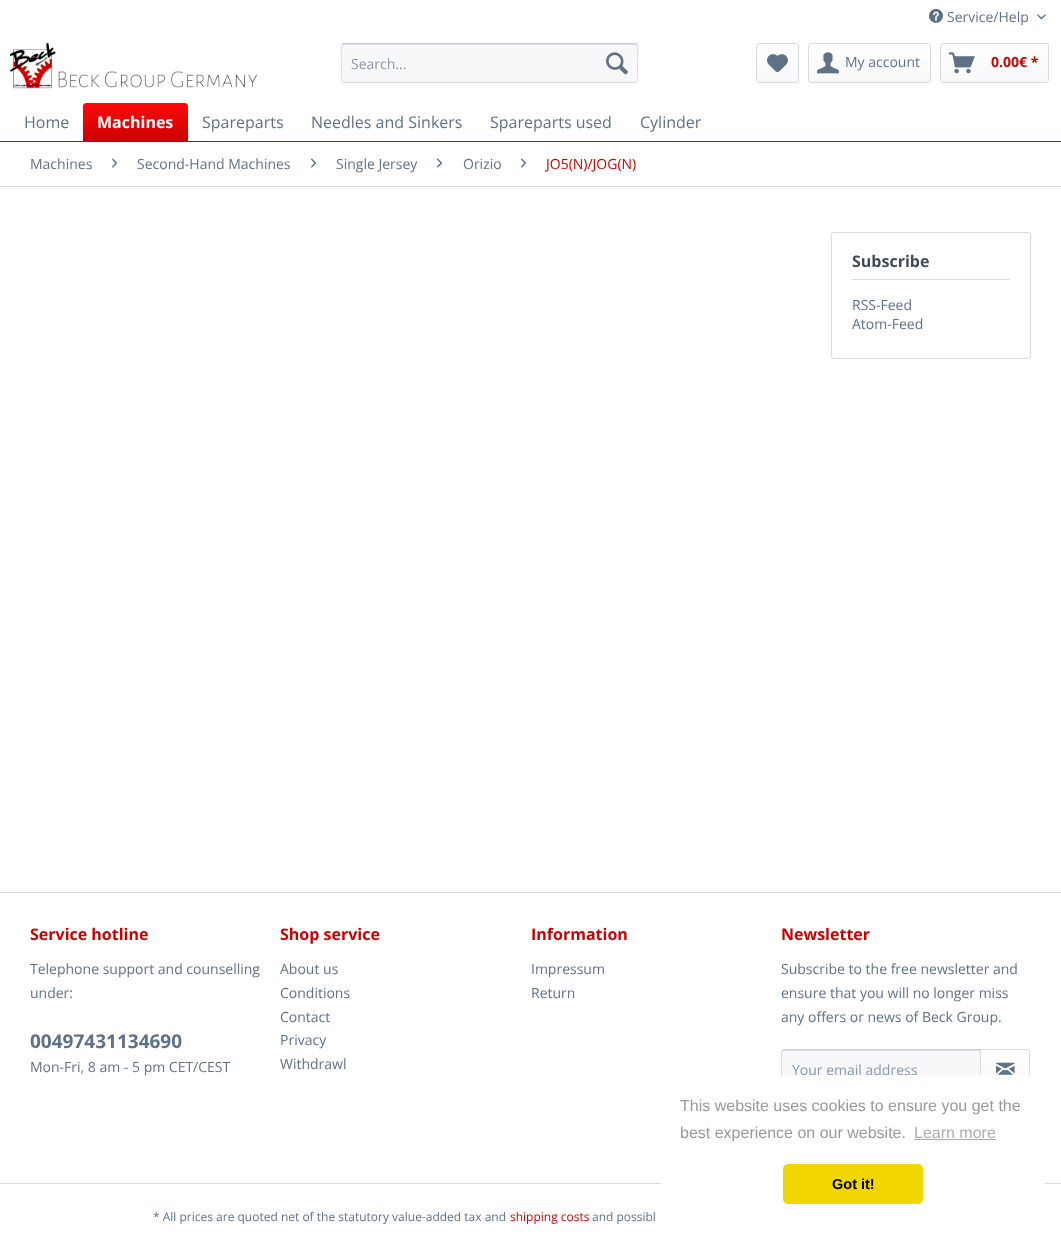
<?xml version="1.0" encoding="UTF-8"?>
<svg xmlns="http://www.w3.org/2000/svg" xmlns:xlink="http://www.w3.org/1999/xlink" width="1061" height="1239">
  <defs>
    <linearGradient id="g1" gradientUnits="userSpaceOnUse" x1="778" y1="44" x2="778" y2="82"><stop offset="0" stop-color="#ffffff" /><stop offset="1" stop-color="#f8f8fa" /></linearGradient>
    <linearGradient id="g2" gradientUnits="userSpaceOnUse" x1="870" y1="44" x2="870" y2="82"><stop offset="0" stop-color="#ffffff" /><stop offset="1" stop-color="#f8f8fa" /></linearGradient>
    <linearGradient id="g3" gradientUnits="userSpaceOnUse" x1="995" y1="44" x2="995" y2="82"><stop offset="0" stop-color="#ffffff" /><stop offset="1" stop-color="#f8f8fa" /></linearGradient>
    <linearGradient id="g4" gradientUnits="userSpaceOnUse" x1="136" y1="103" x2="136" y2="141"><stop offset="0" stop-color="#ff0a0a" /><stop offset="1" stop-color="#cc0000" /></linearGradient>
    <linearGradient id="g5" gradientUnits="userSpaceOnUse" x1="1005" y1="1050" x2="1005" y2="1088"><stop offset="0" stop-color="#ffffff" /><stop offset="1" stop-color="#f8f8fa" /></linearGradient>
  </defs>
  <rect width="100%" height="100%" fill="#ffffff" />
  <image x="929" y="8" width="14" height="15" xlink:href="image1.png" />
  <image x="1037" y="14" width="9" height="6" xlink:href="image2.png" />
  <image x="10" y="43" width="248" height="46" xlink:href="image3.png" />
  <rect x="341" y="43" width="297" height="40" rx="3" fill="#f8f8fa" />
  <path d="M 344 45 h 291 c 1 0 2 1 2 2 c 0 -1 0 -3 -2 -3 h -292 l -1 3 c 0 -1 1 -2 2 -2 z" fill="#dadae5" />
  <path d="M 342 44 l 2 -0.5 h 291 l 2 0.5" fill="none" stroke="#cbcbdb" />
  <path d="M 637 44 c 1.5 2 0.5 16 0.5 19 v 11.5 c 0 1.5 1.5 8 -2.5 8 h -291 c -4 0 -2.5 -6.5 -2.5 -8 v -11.5 c 0 -3 -1 -17 0.5 -19" fill="none" stroke="#dadae5" />
  <image x="606" y="52" width="22" height="23" xlink:href="image4.png" />
  <rect x="757" y="44" width="41" height="38" rx="2" fill="url(#g1)" />
  <rect x="756.5" y="43.5" width="42" height="39" rx="2.5" fill="none" stroke="#dadae5" />
  <image x="767" y="54" width="21" height="19" xlink:href="image5.png" />
  <rect x="809" y="44" width="121" height="38" rx="2" fill="url(#g2)" />
  <rect x="808.5" y="43.5" width="122" height="39" rx="2.5" fill="none" stroke="#dadae5" />
  <image x="817" y="52" width="22" height="22" xlink:href="image6.png" />
  <rect x="941" y="44" width="107" height="38" rx="2" fill="url(#g3)" />
  <rect x="940.5" y="43.5" width="108" height="39" rx="2.5" fill="none" stroke="#dadae5" />
  <image x="949" y="52" width="26" height="22" xlink:href="image7.png" />
  <rect y="141" width="1061" height="1" fill="#cc0000" />
  <path d="M 86 103 h 99 c 1.5 0 3 1.5 3 3 v 35 h -105 v -35 c 0 -1.5 1.5 -3 3 -3 z" fill="url(#g4)" />
  <rect y="186" width="1061" height="1" fill="#dadae5" />
  <image x="112" y="158" width="5" height="10" xlink:href="image8.png" />
  <image x="311" y="158" width="5" height="10" xlink:href="image8.png" />
  <image x="437" y="158" width="5" height="10" xlink:href="image8.png" />
  <image x="521" y="158" width="5" height="10" xlink:href="image8.png" />
  <rect x="831.5" y="232.5" width="199" height="126" rx="2.5" fill="none" stroke="#dadae5" />
  <rect x="852" y="279" width="158" height="1" fill="#dadae5" />
  <rect y="892" width="1061" height="1" fill="#dadae5" />
  <rect y="1183" width="1061" height="1" fill="#dadae5" />
  <path d="M 784 1050 h 196 v 38 h -196 c -1 0 -2 -1 -2 -2 v -34 c 0 -1 1 -2 2 -2 z" fill="#f8f8fa" />
  <path d="M 784 1051 h 196 v -1 h -196 c -2 0 -2 2 -2 3 c 0 -1 1 -2 2 -2 z" fill="#dadae5" />
  <path d="M 784 1049 l -2 1 l 1 1 l 1 -1 h 196 l 1 -1 z" fill="#cbcbdb" />
  <path d="M 781 1052 v 34 c 0 1 0 2 1 2 l 0.5 -0.5 l -0.5 -1.5 v -34 l 0.5 -1.5 l -0.5 -0.5 c -1 0 -1 1 -1 2 z" fill="#dadae5" />
  <path d="M 981 1050 h 46 c 1 0 2 1 2 2 v 34 c 0 1 -1 2 -2 2 h -46 z" fill="url(#g5)" />
  <path d="M 980.5 1049.5 h 46.5 c 1.5 0 2.5 1 2.5 2.5 v 34 c 0 1.5 -1 2.5 -2.5 2.5 h -46.5 z" fill="none" stroke="#dadae5" />
  <image x="996" y="1062" width="19" height="13" xlink:href="image9.png" />
  <text x="947" y="22" style="font-family: Open Sans; font-size: 14px; fill: #5f7285">Service/Help</text>
  <text x="351" y="69" style="font-family: Open Sans; font-size: 14px; fill: #8798a9">Search...</text>
  <text x="845" y="67" style="font-family: Open Sans; font-size: 14px; fill: #5f7285">My account</text>
  <text x="991" y="67" style="font-family: Open Sans; font-size: 14px; font-weight: bold; fill: #cc0000">0.00€ *</text>
  <text x="24" y="128" style="font-family: Open Sans; font-size: 16px; fill: #5f7285">Home</text>
  <text x="97" y="128" style="font-family: Open Sans; font-size: 16px; font-weight: bold; fill: #ffffff">Machines</text>
  <text x="202" y="128" style="font-family: Open Sans; font-size: 16px; fill: #5f7285">Spareparts</text>
  <text x="311" y="128" style="font-family: Open Sans; font-size: 16px; fill: #5f7285">Needles and Sinkers</text>
  <text x="490" y="128" style="font-family: Open Sans; font-size: 16px; fill: #5f7285">Spareparts used</text>
  <text x="640" y="128" style="font-family: Open Sans; font-size: 16px; fill: #5f7285">Cylinder</text>
  <text x="30" y="169" style="font-family: Open Sans; font-size: 14px; fill: #5f7285">Machines</text>
  <text x="137" y="169" style="font-family: Open Sans; font-size: 14px; fill: #5f7285">Second-Hand Machines</text>
  <text x="336" y="169" style="font-family: Open Sans; font-size: 14px; fill: #5f7285">Single Jersey</text>
  <text x="463" y="169" style="font-family: Open Sans; font-size: 14px; fill: #5f7285">Orizio</text>
  <text x="546" y="169" style="font-family: Open Sans; font-size: 14px; fill: #cc0000">JO5(N)/JOG(N)</text>
  <text x="852" y="267" style="font-family: Open Sans; font-size: 16px; font-weight: bold; fill: #3f4c58">Subscribe</text>
  <text x="852" y="310" style="font-family: Open Sans; font-size: 14px; fill: #5f7285">RSS-Feed</text>
  <text x="852" y="329" style="font-family: Open Sans; font-size: 14px; fill: #5f7285">Atom-Feed</text>
  <text x="30" y="940" style="font-family: Open Sans; font-size: 16px; font-weight: bold; fill: #cc0000">Service hotline</text>
  <text x="30" y="974" style="font-family: Open Sans; font-size: 14px; fill: #5f7285">Telephone support and counselling</text>
  <text x="30" y="998" style="font-family: Open Sans; font-size: 14px; fill: #5f7285">under:</text>
  <text x="30" y="1048" style="font-family: Open Sans; font-size: 19px; font-weight: bold; fill: #5f7285">00497431134690</text>
  <text x="30" y="1072" style="font-family: Open Sans; font-size: 14px; fill: #5f7285">Mon-Fri, 8 am - 5 pm CET/CEST</text>
  <text x="280" y="940" style="font-family: Open Sans; font-size: 16px; font-weight: bold; fill: #cc0000">Shop service</text>
  <text x="280" y="974" style="font-family: Open Sans; font-size: 14px; fill: #5f7285">About us</text>
  <text x="280" y="998" style="font-family: Open Sans; font-size: 14px; fill: #5f7285">Conditions</text>
  <text x="280" y="1022" style="font-family: Open Sans; font-size: 14px; fill: #5f7285">Contact</text>
  <text x="280" y="1045" style="font-family: Open Sans; font-size: 14px; fill: #5f7285">Privacy</text>
  <text x="280" y="1069" style="font-family: Open Sans; font-size: 14px; fill: #5f7285">Withdrawl</text>
  <text x="531" y="940" style="font-family: Open Sans; font-size: 16px; font-weight: bold; fill: #cc0000">Information</text>
  <text x="531" y="974" style="font-family: Open Sans; font-size: 14px; fill: #5f7285">Impressum</text>
  <text x="531" y="998" style="font-family: Open Sans; font-size: 14px; fill: #5f7285">Return</text>
  <text x="781" y="940" style="font-family: Open Sans; font-size: 16px; font-weight: bold; fill: #cc0000">Newsletter</text>
  <text x="781" y="974" style="font-family: Open Sans; font-size: 14px; fill: #5f7285">Subscribe to the free newsletter and</text>
  <text x="781" y="998" style="font-family: Open Sans; font-size: 14px; fill: #5f7285">ensure that you will no longer miss</text>
  <text x="781" y="1022" style="font-family: Open Sans; font-size: 14px; fill: #5f7285">any offers or news of Beck Group.</text>
  <text x="792" y="1075" style="font-family: Open Sans; font-size: 14px; fill: #8798a9">Your email address</text>
  <text x="153" y="1221" style="font-family: Open Sans; font-size: 12px; fill: #5f7285">* All prices are quoted net of the statutory value-added tax and</text>
  <text x="510" y="1221" style="font-family: Open Sans; font-size: 12px; fill: #cc0000">shipping costs</text>
  <text x="592" y="1221" style="font-family: Open Sans; font-size: 12px; fill: #5f7285">and possibl</text>
  <rect x="661" y="1075" width="384" height="148" rx="5" fill="#ffffff" />
  <text x="680" y="1111" style="font-family: Liberation Sans; font-size: 16px; fill: #999999">This website uses cookies to ensure you get the</text>
  <text x="680" y="1138" style="font-family: Liberation Sans; font-size: 16px; fill: #999999">best experience on our website.</text>
  <text x="914" y="1138" style="font-family: Liberation Sans; font-size: 16px; fill: #adadad">Learn more</text>
  <rect x="914" y="1139" width="82" height="1" fill="#adadad" />
  <rect x="783" y="1164" width="140" height="40" rx="5" fill="#f1d600" />
  <text x="832" y="1189" style="font-family: Liberation Sans; font-size: 14.5px; font-weight: bold; fill: #000000">Got it!</text>
</svg>
